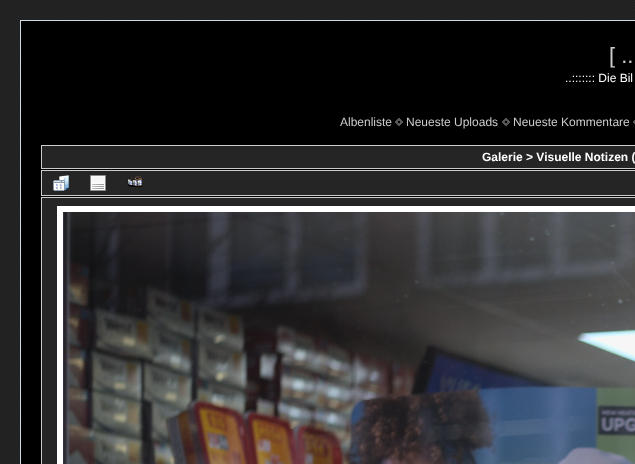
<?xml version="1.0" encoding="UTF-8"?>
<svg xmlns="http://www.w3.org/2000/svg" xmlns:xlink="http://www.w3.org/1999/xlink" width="635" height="464">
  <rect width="100%" height="100%" fill="#ffffff" />
  <image x="0" y="0" width="635" height="464" xlink:href="image1.png" />
  <rect x="20.5" y="20.5" width="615" height="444" fill="#000000" stroke="#ccd7e0" />
  <image x="395" y="118" width="8" height="8" xlink:href="image2.png" />
  <image x="502" y="118" width="8" height="8" xlink:href="image2.png" />
  <image x="633" y="120" width="2" height="4" xlink:href="image3.png" />
  <rect x="41.5" y="145.5" width="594" height="23" fill="#252525" stroke="#cccccc" />
  <rect x="41.5" y="170.5" width="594" height="25" fill="#252525" stroke="#cccccc" />
  <image x="53" y="175" width="16" height="16" xlink:href="image4.png" />
  <image x="90" y="175" width="16" height="16" xlink:href="image5.png" />
  <image x="127" y="176" width="16" height="11" xlink:href="image6.png" />
  <rect x="41.5" y="197.5" width="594" height="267" fill="#252525" stroke="#cccccc" />
  <rect x="60" y="209" width="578" height="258" fill="none" stroke="#ffffff" stroke-width="6" />
  <image x="63" y="212" width="572" height="252" xlink:href="image7.png" />
  <text x="609" y="63" style="font-family: Liberation Sans; font-size: 22px; fill: #cccccc">[ ..</text>
  <text x="565" y="82" style="font-family: Liberation Sans; font-size: 12px; fill: #ffffff">..::::::: Die Bil</text>
  <text x="340" y="126" style="font-family: Liberation Sans; font-size: 12px; fill: #cccccc">Albenliste</text>
  <text x="406" y="126" style="font-family: Liberation Sans; font-size: 12px; fill: #cccccc">Neueste Uploads</text>
  <text x="513" y="126" style="font-family: Liberation Sans; font-size: 12px; fill: #cccccc">Neueste Kommentare</text>
  <text x="482" y="161" style="font-family: Liberation Sans; font-size: 12px; font-weight: bold; fill: #ffffff">Galerie &gt; Visuelle Notizen (</text>
</svg>
